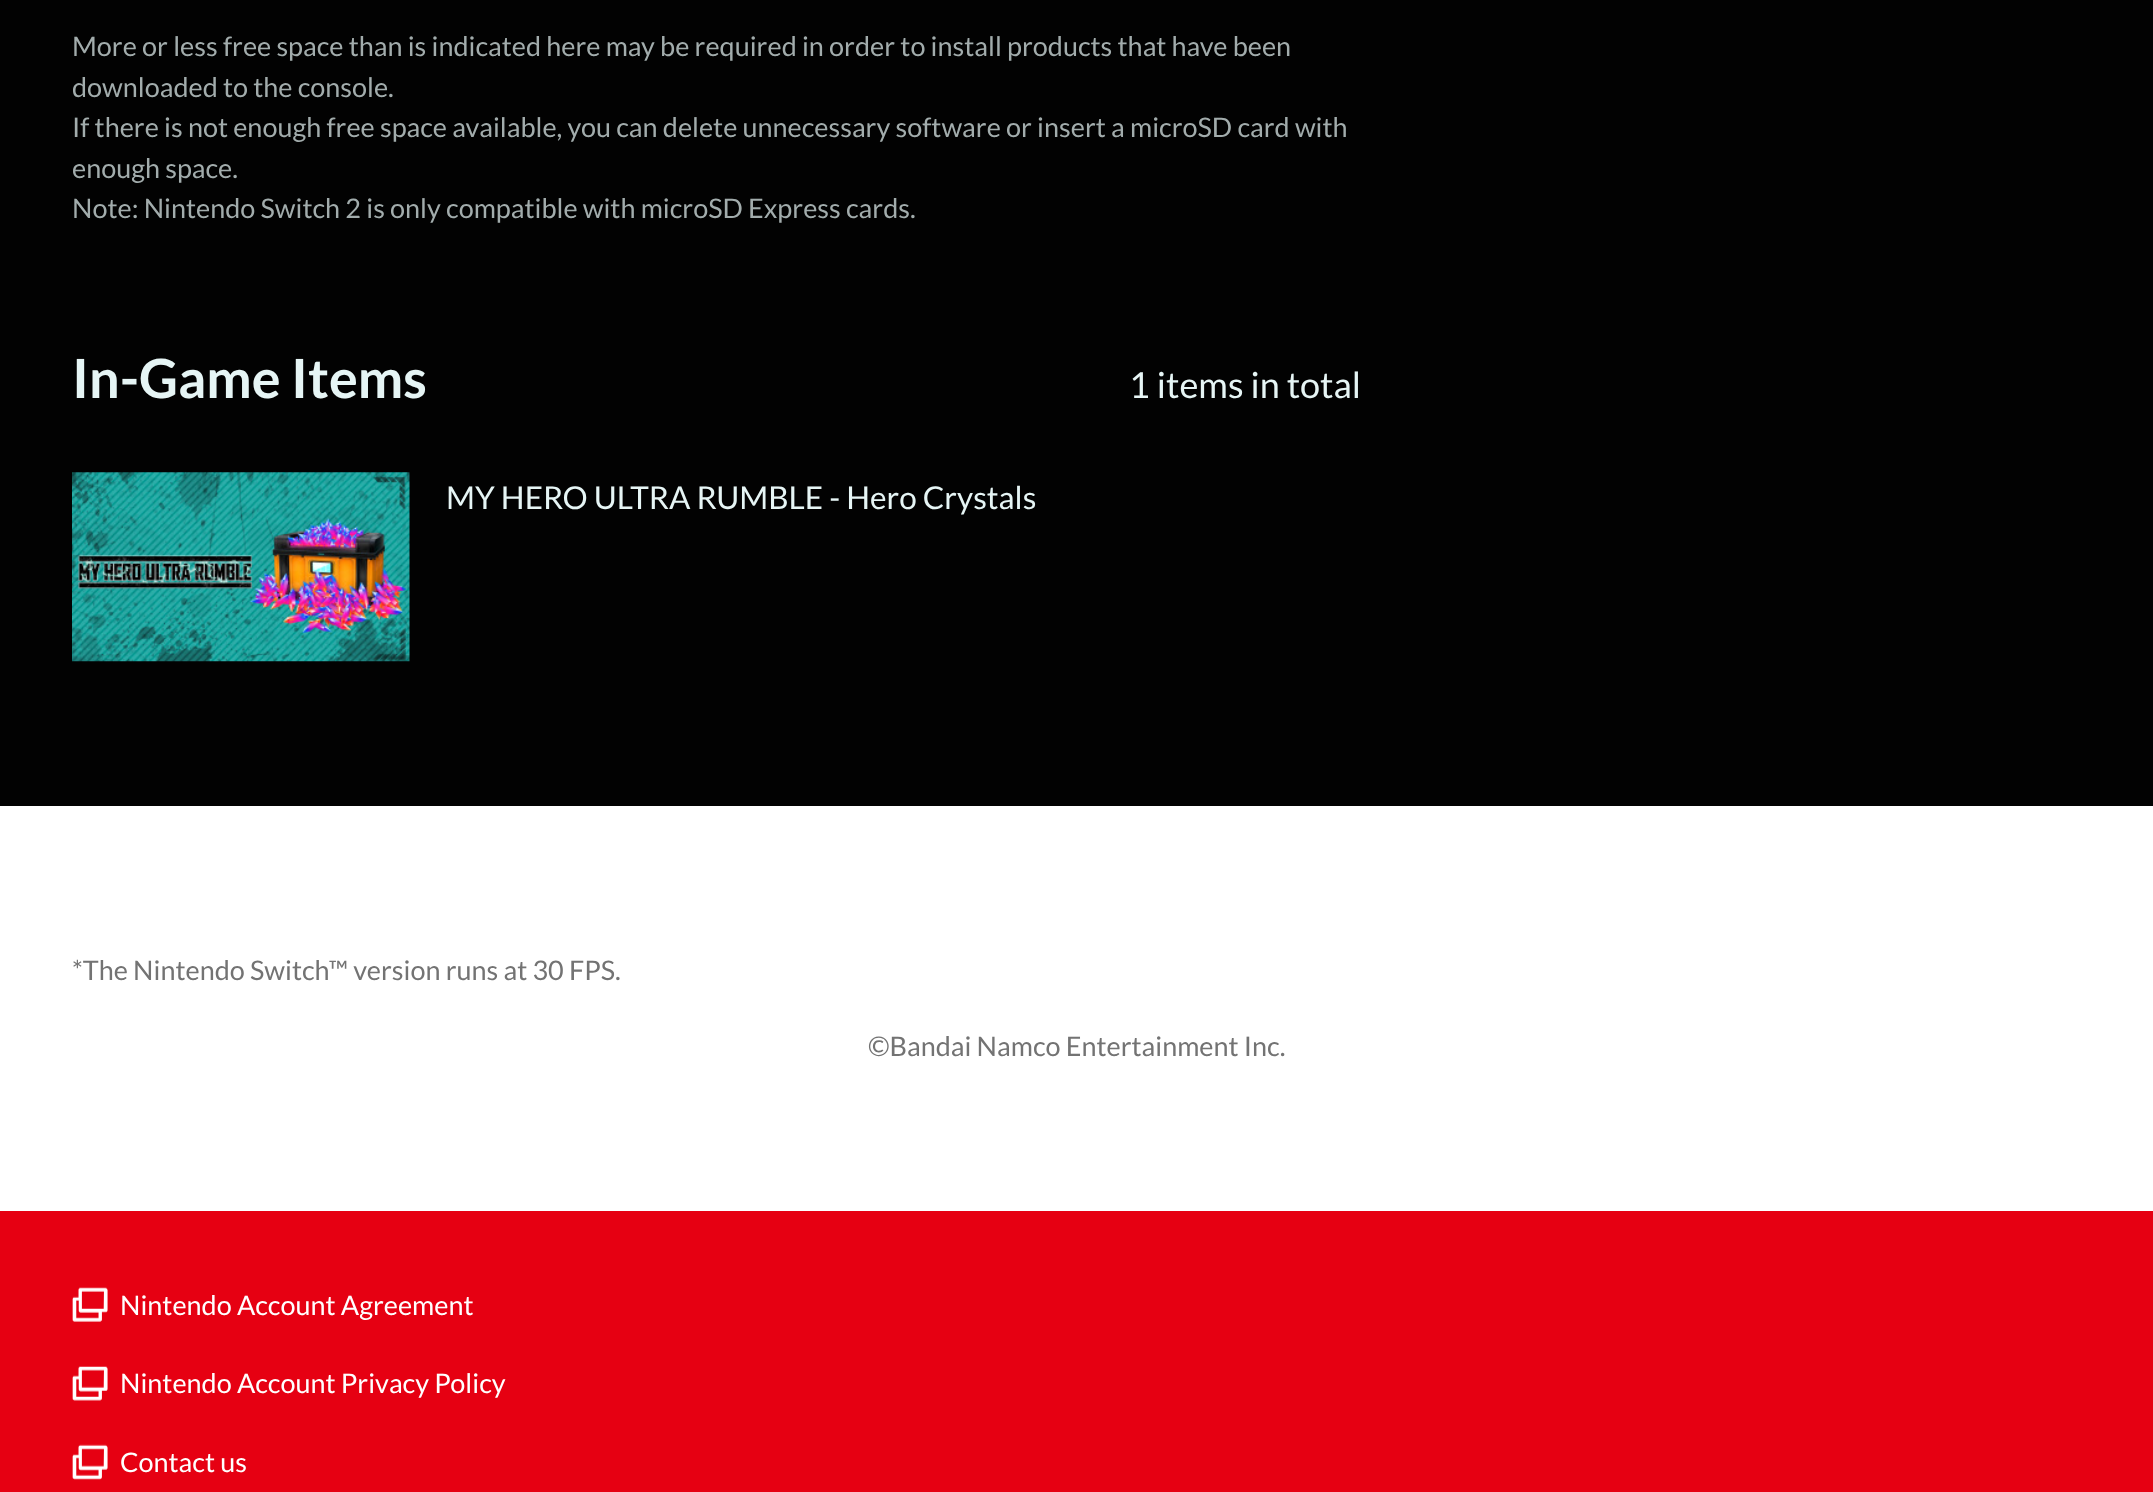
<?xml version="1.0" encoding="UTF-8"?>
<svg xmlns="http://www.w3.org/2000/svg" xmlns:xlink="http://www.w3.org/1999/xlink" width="2153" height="1492">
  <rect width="100%" height="100%" fill="#ffffff" />
  <rect width="2153" height="806" fill="#020202" />
  <image x="72" y="472" width="338" height="190" xlink:href="image1.png" />
  <rect y="1211" width="2153" height="281" fill="#e60012" />
  <image x="72" y="1287" width="36" height="35" xlink:href="image2.png" />
  <image x="72" y="1366" width="36" height="35" xlink:href="image3.png" />
  <image x="72" y="1444" width="36" height="36" xlink:href="image4.png" />
  <text x="72" y="56" style="font-family: Lato; font-size: 27px; fill: #a2acac">More or less free space than is indicated here may be required in order to install products that have been</text>
  <text x="72" y="97" style="font-family: Lato; font-size: 27px; fill: #a2acac">downloaded to the console.</text>
  <text x="72" y="137" style="font-family: Lato; font-size: 27px; fill: #a2acac">If there is not enough free space available, you can delete unnecessary software or insert a microSD card with</text>
  <text x="72" y="178" style="font-family: Lato; font-size: 27px; fill: #a2acac">enough space.</text>
  <text x="72" y="218" style="font-family: Lato; font-size: 27px; fill: #a2acac">Note: Nintendo Switch 2 is only compatible with microSD Express cards.</text>
  <text x="72" y="398" style="font-family: Lato; font-size: 54px; font-weight: bold; fill: #e6f5f5">In-Game Items</text>
  <text x="1129" y="398" style="font-family: Lato; font-size: 36px; fill: #e6f5f5">1 items in total</text>
  <text x="446" y="509" style="font-family: Lato; font-size: 31.5px; fill: #e6f5f5">MY HERO ULTRA RUMBLE - Hero Crystals</text>
  <text x="72" y="980" style="font-family: Lato; font-size: 27px; fill: #737373">*The Nintendo Switch™ version runs at 30 FPS.</text>
  <text x="868" y="1056" style="font-family: Lato; font-size: 27px; fill: #737373">©Bandai Namco Entertainment Inc.</text>
  <text x="120" y="1315" style="font-family: Lato; font-size: 27px; fill: #ffffff">Nintendo Account Agreement</text>
  <text x="120" y="1393" style="font-family: Lato; font-size: 27px; fill: #ffffff">Nintendo Account Privacy Policy</text>
  <text x="120" y="1472" style="font-family: Lato; font-size: 27px; fill: #ffffff">Contact us</text>
</svg>
